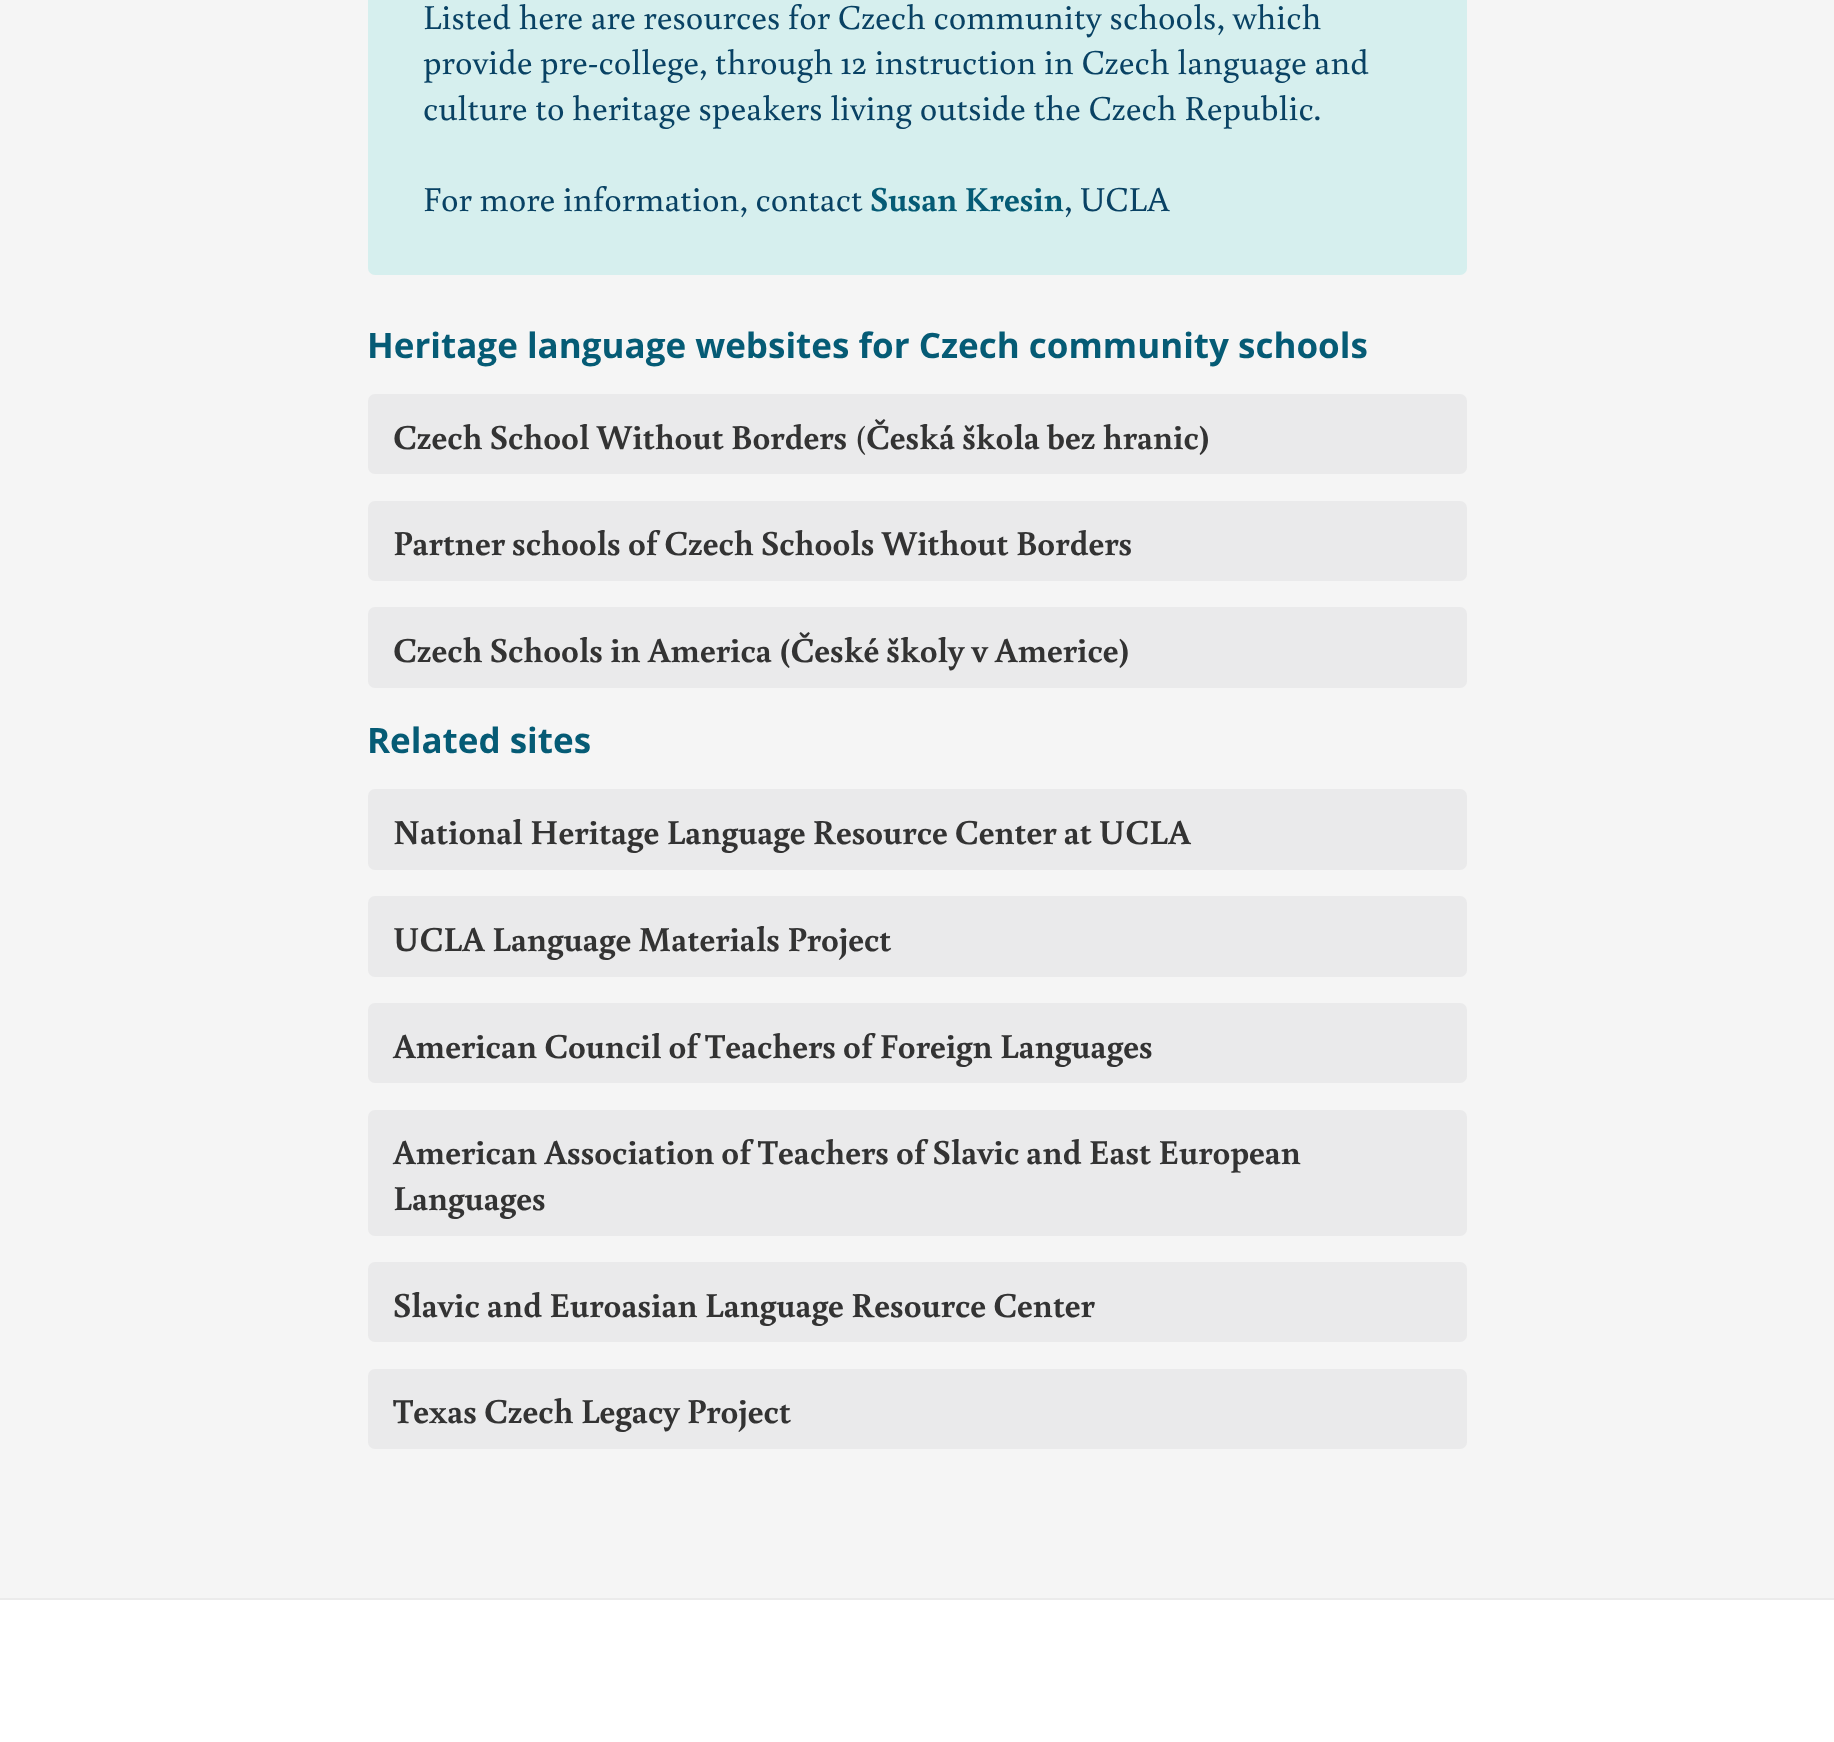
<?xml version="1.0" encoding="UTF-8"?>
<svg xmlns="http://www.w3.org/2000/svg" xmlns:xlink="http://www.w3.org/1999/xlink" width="1834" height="1742">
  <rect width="100%" height="100%" fill="#f5f5f5" />
  <rect x="368" y="-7" width="1099" height="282" rx="7" fill="#d6efee" />
  <rect x="368" y="394" width="1099" height="80" rx="7" fill="#eaeaeb" />
  <rect x="368" y="501" width="1099" height="80" rx="7" fill="#eaeaeb" />
  <rect x="368" y="607" width="1099" height="81" rx="7" fill="#eaeaeb" />
  <rect x="368" y="789" width="1099" height="81" rx="7" fill="#eaeaeb" />
  <rect x="368" y="896" width="1099" height="81" rx="7" fill="#eaeaeb" />
  <rect x="368" y="1003" width="1099" height="80" rx="7" fill="#eaeaeb" />
  <rect x="368" y="1110" width="1099" height="126" rx="7" fill="#eaeaeb" />
  <rect x="368" y="1262" width="1099" height="80" rx="7" fill="#eaeaeb" />
  <rect x="368" y="1369" width="1099" height="80" rx="7" fill="#eaeaeb" />
  <rect y="1600" width="1834" height="142" fill="#ffffff" />
  <rect y="1598" width="1834" height="2" fill="#ebebeb" />
  <text x="423" y="29" style="font-family: Buenard; font-size: 35px; fill: #094264">Listed here are resources for Czech community schools, which</text>
  <text x="423" y="74" style="font-family: Buenard; font-size: 35px; fill: #094264">provide pre-college, through 12 instruction in Czech language and</text>
  <text x="423" y="120" style="font-family: Buenard; font-size: 35px; fill: #094264">culture to heritage speakers living outside the Czech Republic.</text>
  <text x="423" y="211" style="font-family: Buenard; font-size: 35px; fill: #094264">For more information, contact</text>
  <text x="870" y="211" style="font-family: Buenard; font-size: 35px; font-weight: bold; fill: #055b75">Susan Kresin</text>
  <text x="1064" y="211" style="font-family: Buenard; font-size: 35px; fill: #094264">, UCLA</text>
  <text x="367" y="358" style="font-family: Open Sans; font-size: 35px; font-weight: bold; fill: #055b75">Heritage language websites for Czech community schools</text>
  <text x="393" y="449" style="font-family: Buenard; font-size: 35px; font-weight: bold; fill: #333333">Czech School Without Borders</text>
  <text x="855" y="449" style="font-family: Buenard; font-size: 35px; fill: #333333">(</text>
  <text x="866" y="449" style="font-family: Buenard; font-size: 35px; font-weight: bold; fill: #333333">Česká škola bez hranic)</text>
  <text x="393" y="555" style="font-family: Buenard; font-size: 35px; font-weight: bold; fill: #333333">Partner schools of Czech Schools Without Borders</text>
  <text x="393" y="662" style="font-family: Buenard; font-size: 35px; font-weight: bold; fill: #333333">Czech Schools in America (České školy v Americe)</text>
  <text x="367" y="753" style="font-family: Open Sans; font-size: 35px; font-weight: bold; fill: #055b75">Related sites</text>
  <text x="393" y="844" style="font-family: Buenard; font-size: 35px; font-weight: bold; fill: #333333">National Heritage Language Resource Center at UCLA</text>
  <text x="393" y="951" style="font-family: Buenard; font-size: 35px; font-weight: bold; fill: #333333">UCLA Language Materials Project</text>
  <text x="393" y="1058" style="font-family: Buenard; font-size: 35px; font-weight: bold; fill: #333333">American Council of Teachers of Foreign Languages</text>
  <text x="393" y="1164" style="font-family: Buenard; font-size: 35px; font-weight: bold; fill: #333333">American Association of Teachers of Slavic and East European</text>
  <text x="393" y="1210" style="font-family: Buenard; font-size: 35px; font-weight: bold; fill: #333333">Languages</text>
  <text x="393" y="1317" style="font-family: Buenard; font-size: 35px; font-weight: bold; fill: #333333">Slavic and Euroasian Language Resource Center</text>
  <text x="393" y="1423" style="font-family: Buenard; font-size: 35px; font-weight: bold; fill: #333333">Texas Czech Legacy Project</text>
</svg>
